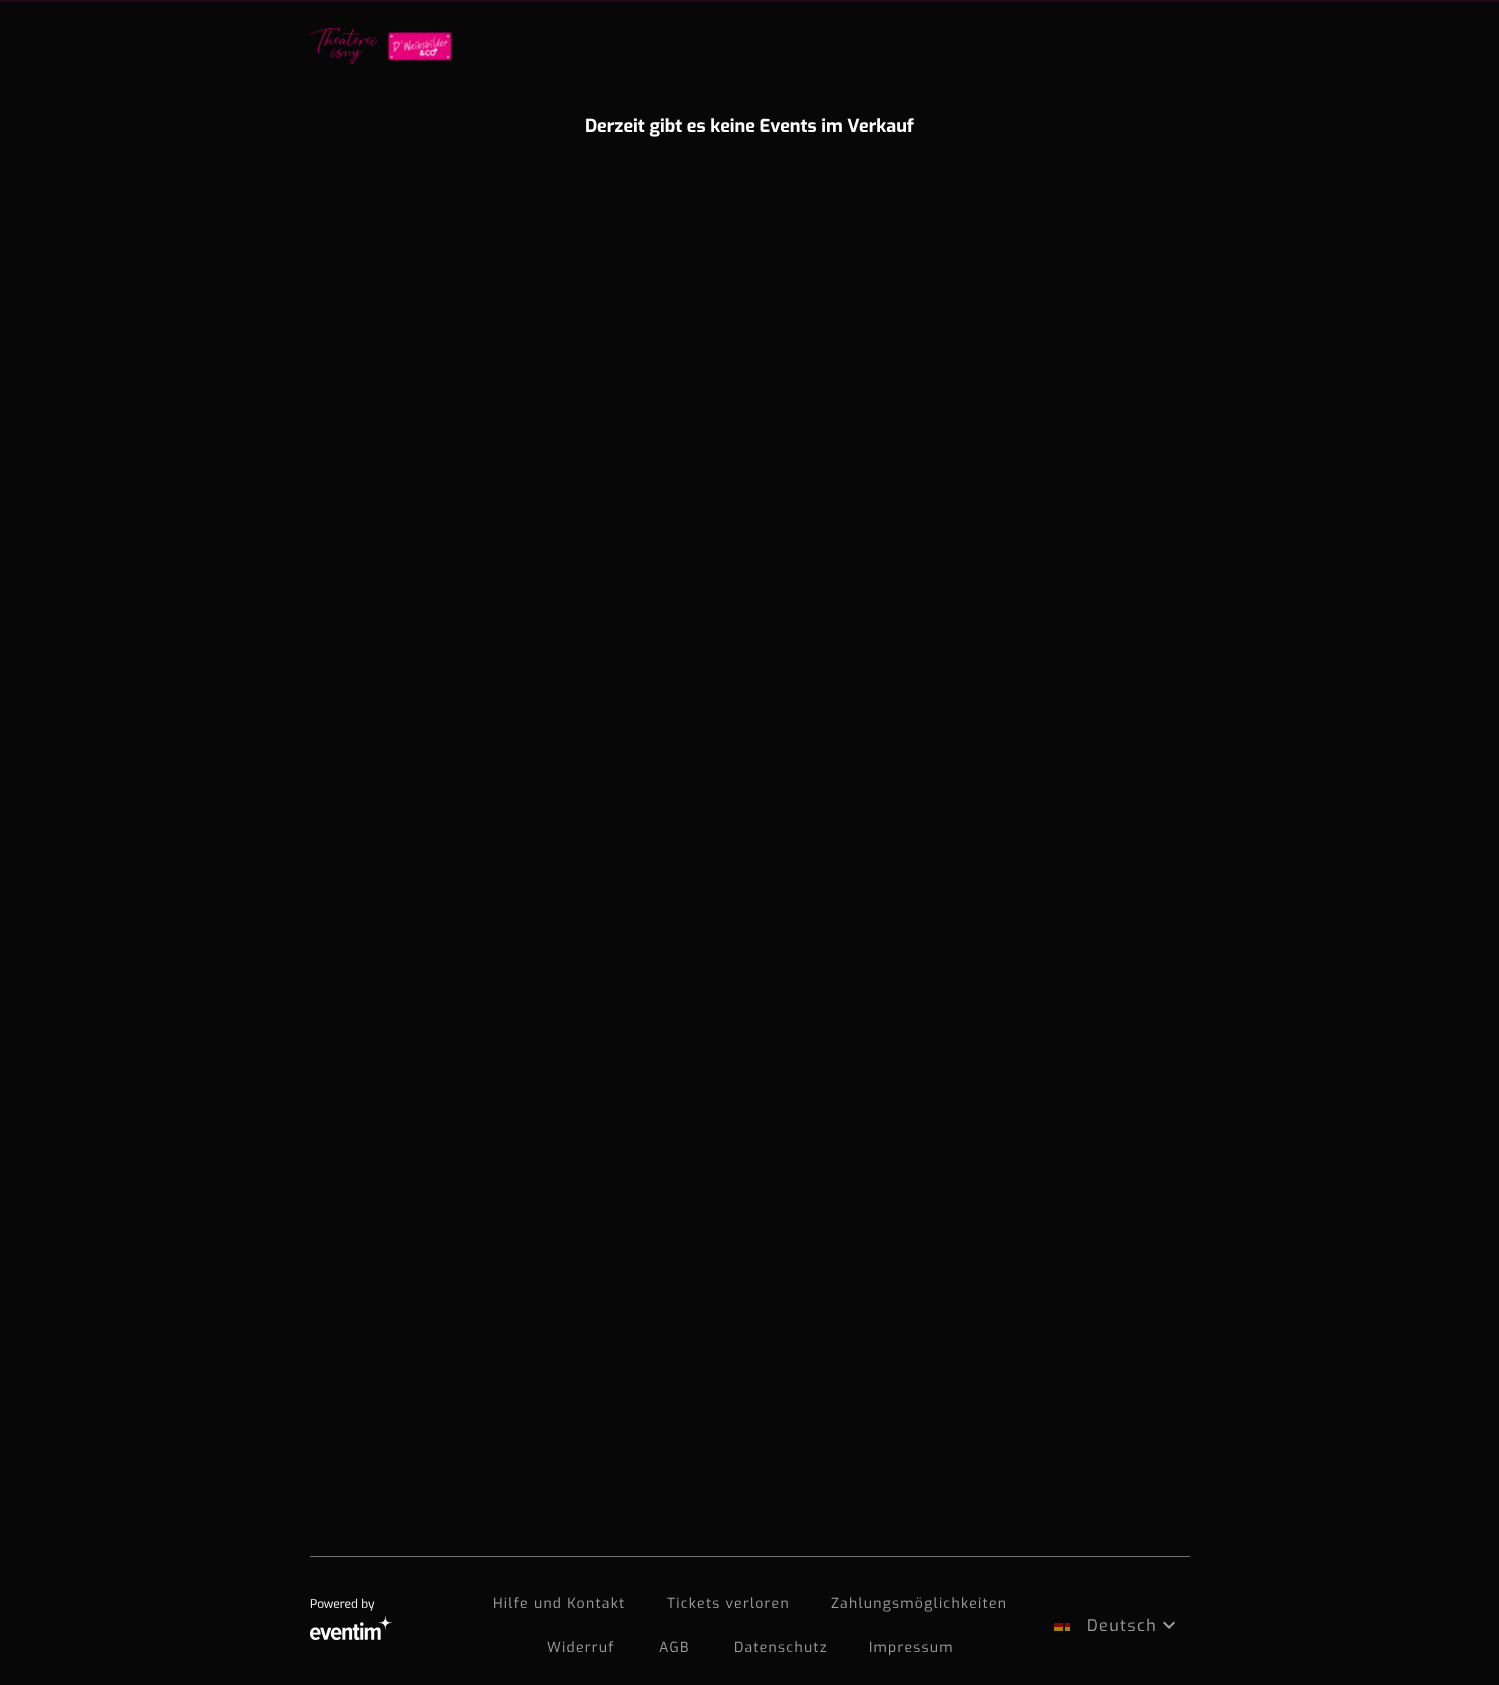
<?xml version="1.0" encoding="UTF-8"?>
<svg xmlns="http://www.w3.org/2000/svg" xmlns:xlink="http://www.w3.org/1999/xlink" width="1499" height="1685">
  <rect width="100%" height="100%" fill="#070707" />
  <rect width="1499" height="2" fill="#250619" />
  <image x="310" y="28" width="142" height="36" xlink:href="image1.png" />
  <rect x="310" y="1556" width="880" height="1" fill="#717171" />
  <image x="310" y="1616" width="82" height="25" xlink:href="image2.png" />
  <rect x="1054" y="1627" width="16" height="4" fill="#a18203" />
  <rect x="1054" y="1619" width="16" height="4" fill="#030303" />
  <rect x="1054" y="1623" width="16" height="4" fill="#8c0303" />
  <image x="1163" y="1621" width="12" height="8" xlink:href="image3.png" />
  <rect x="1064" y="1604" width="124" height="42" rx="5" fill="none" stroke="#070707" stroke-width="2" />
  <text x="585" y="132" style="font-family: Exo; font-size: 18px; font-weight: bold; fill: #ffffff">Derzeit gibt es keine Events im Verkauf</text>
  <text x="310" y="1608" style="font-family: Exo; font-size: 12px; fill: #ffffff">Powered by</text>
  <text x="493" y="1608" style="font-family: Exo; font-size: 14px; letter-spacing: 1.25px; fill: #a1a1a1">Hilfe und Kontakt</text>
  <text x="667" y="1608" style="font-family: Exo; font-size: 14px; letter-spacing: 1.25px; fill: #a1a1a1">Tickets verloren</text>
  <text x="831" y="1608" style="font-family: Exo; font-size: 14px; letter-spacing: 1.25px; fill: #a1a1a1">Zahlungsmöglichkeiten</text>
  <text x="547" y="1652" style="font-family: Exo; font-size: 14px; letter-spacing: 1.25px; fill: #a1a1a1">Widerruf</text>
  <text x="659" y="1652" style="font-family: Exo; font-size: 14px; letter-spacing: 1.25px; fill: #a1a1a1">AGB</text>
  <text x="734" y="1652" style="font-family: Exo; font-size: 14px; letter-spacing: 1.25px; fill: #a1a1a1">Datenschutz</text>
  <text x="869" y="1652" style="font-family: Exo; font-size: 14px; letter-spacing: 1.25px; fill: #a1a1a1">Impressum</text>
  <text x="1087" y="1631" style="font-family: Exo; font-size: 16px; letter-spacing: 1.5px; fill: #a1a1a1">Deutsch</text>
</svg>
